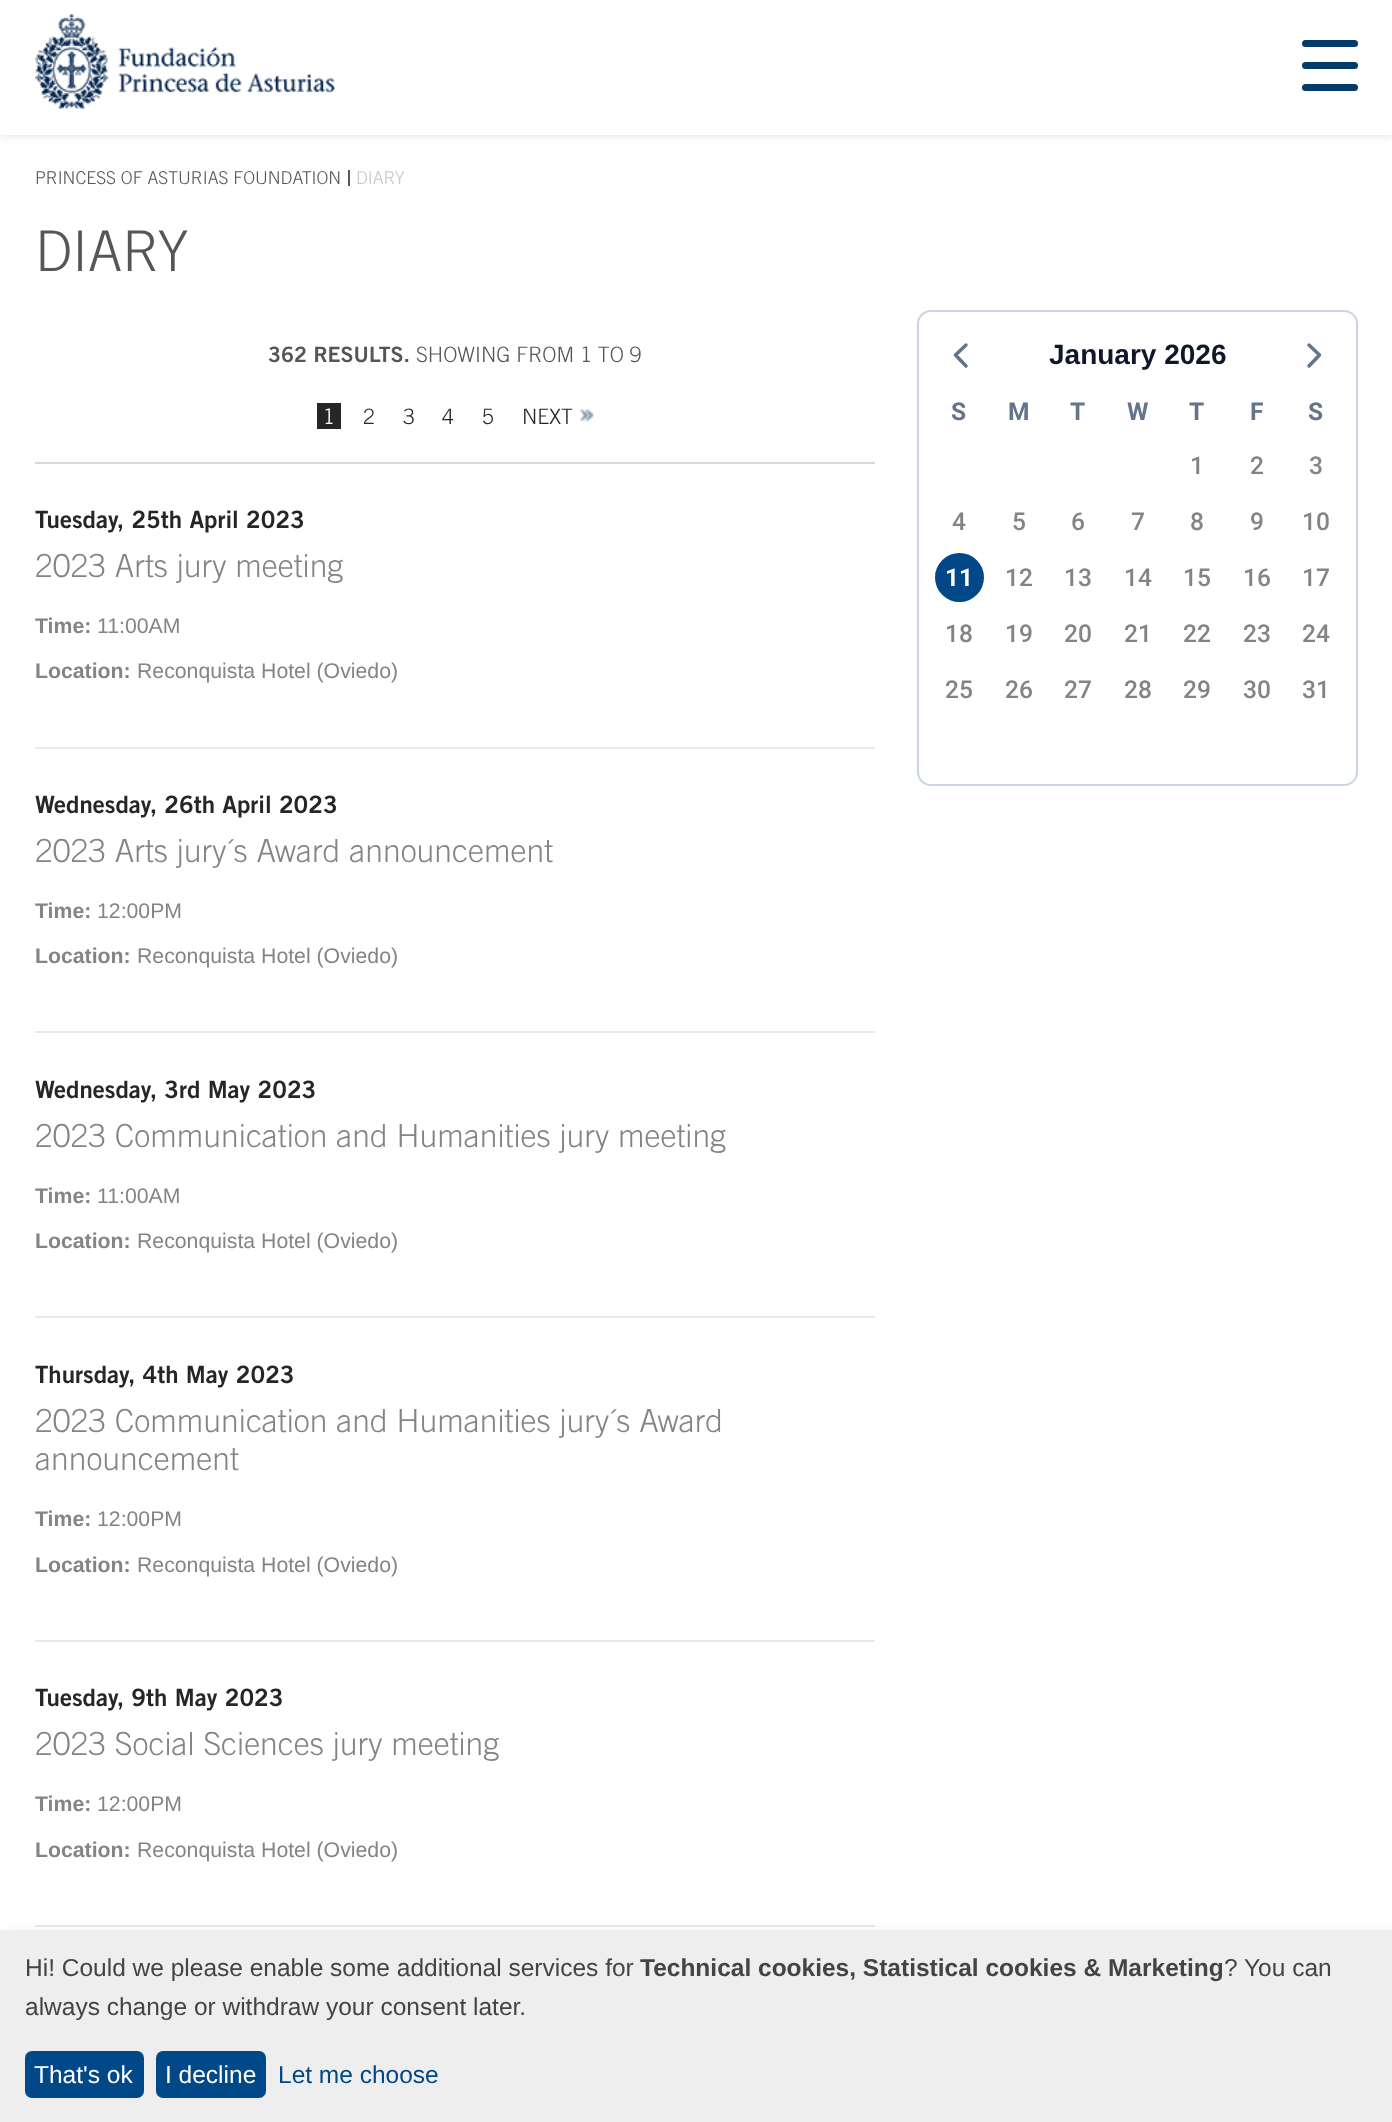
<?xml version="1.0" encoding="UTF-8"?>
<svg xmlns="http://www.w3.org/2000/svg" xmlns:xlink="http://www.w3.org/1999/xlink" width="1392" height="2122">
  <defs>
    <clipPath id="clip1"><path d="M 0 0 h 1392 v 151 h -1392 z m 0 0 h 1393 v 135 h -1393 z" clip-rule="evenodd" /></clipPath>
  </defs>
  <rect width="100%" height="100%" fill="#ffffff" />
  <g clip-path="url(#clip1)">
    <rect width="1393" height="135" fill="#dedcdc" filter="blur(5px)" />
  </g>
  <image x="35" y="14" width="300" height="95" xlink:href="image1.png" />
  <rect x="1302" y="40" width="56" height="7" rx="3.5" fill="#043b6b" />
  <rect x="1302" y="62" width="56" height="7" rx="3.5" fill="#043b6b" />
  <rect x="1302" y="84" width="56" height="7" rx="3.5" fill="#043b6b" />
  <rect x="348" y="170" width="2" height="16" fill="#545657" />
  <rect x="35" y="462" width="840" height="2" fill="#d9d9d9" />
  <rect x="317" y="403" width="24" height="26" fill="#282525" />
  <image x="579" y="409" width="15" height="13" xlink:href="image2.png" />
  <rect x="35" y="747" width="840" height="2" fill="#e9e9e9" />
  <rect x="35" y="1031" width="840" height="2" fill="#e9e9e9" />
  <rect x="35" y="1316" width="840" height="2" fill="#e9e9e9" />
  <rect x="35" y="1640" width="840" height="2" fill="#e9e9e9" />
  <rect x="35" y="1925" width="840" height="2" fill="#e9e9e9" />
  <rect x="918" y="311" width="439" height="474" rx="13" fill="none" stroke="#cbd5e1" stroke-width="2" />
  <path d="M 966 366 l -10.5 -11 l 10.5 -10" fill="none" stroke="#64748b" stroke-width="3.5" stroke-linecap="round" stroke-linejoin="round" />
  <path d="M 1309 366 l 10.5 -11 l -10.5 -10" fill="none" stroke="#64748b" stroke-width="3.5" stroke-linecap="round" stroke-linejoin="round" />
  <circle cx="959.5" cy="577.5" r="24.5" fill="#004887" />
  <rect x="9" y="1939" width="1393" height="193" fill="#000000" fill-opacity="0.19" filter="blur(9px)" />
  <rect y="1930" width="1392" height="192" fill="#eeeeee" />
  <rect x="25" y="2051" width="119" height="47" rx="7" fill="#004887" />
  <rect x="156" y="2051" width="110" height="47" rx="7" fill="#004887" />
  <text x="35" y="184" style="font-family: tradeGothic; font-size: 17.75px; font-weight: 300; fill: #545657">PRINCESS OF ASTURIAS FOUNDATION</text>
  <text x="356" y="184" style="font-family: tradeGothic; font-size: 17.75px; font-weight: 300; fill: #c6c5c8">DIARY</text>
  <text x="35" y="271" style="font-family: tradeGothic; font-size: 56px; font-weight: 300; fill: #545657">DIARY</text>
  <text x="268" y="362" style="font-family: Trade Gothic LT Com; font-size: 21.25px; font-weight: bold; fill: #545657">362 RESULTS.</text>
  <text x="416" y="362" style="font-family: tradeGothic; font-size: 21.25px; font-weight: 300; fill: #545657">SHOWING FROM 1 TO 9</text>
  <text x="323" y="424" style="font-family: tradeGothic; font-size: 21.25px; font-weight: 300; fill: #ffffff">1</text>
  <text x="363" y="424" style="font-family: tradeGothic; font-size: 21.25px; font-weight: 300; fill: #282525">2</text>
  <text x="403" y="424" style="font-family: tradeGothic; font-size: 21.25px; font-weight: 300; fill: #282525">3</text>
  <text x="442" y="424" style="font-family: tradeGothic; font-size: 21.25px; font-weight: 300; fill: #282525">4</text>
  <text x="482" y="424" style="font-family: tradeGothic; font-size: 21.25px; font-weight: 300; fill: #282525">5</text>
  <text x="522" y="424" style="font-family: tradeGothic; font-size: 21.25px; font-weight: 300; fill: #282525">NEXT</text>
  <text x="35" y="528" style="font-family: Trade Gothic LT Com; font-size: 24px; font-weight: bold; fill: #282525">Tuesday, 25th April 2023</text>
  <text x="35" y="577" style="font-family: tradeGothic; font-size: 31.9px; font-weight: 300; fill: #848484">2023 Arts jury meeting</text>
  <text x="35" y="633" style="font-family: Liberation Sans; font-size: 21.25px; font-weight: bold; fill: #848484">Time:</text>
  <text x="97" y="633" style="font-family: Liberation Sans; font-size: 21.25px; fill: #848484">11:00AM</text>
  <text x="35" y="678" style="font-family: Liberation Sans; font-size: 21.25px; font-weight: bold; fill: #848484">Location:</text>
  <text x="137" y="678" style="font-family: Liberation Sans; font-size: 21.25px; fill: #848484">Reconquista Hotel (Oviedo)</text>
  <text x="35" y="813" style="font-family: Trade Gothic LT Com; font-size: 24px; font-weight: bold; fill: #282525">Wednesday, 26th April 2023</text>
  <text x="35" y="862" style="font-family: tradeGothic; font-size: 31.9px; font-weight: 300; fill: #848484">2023 Arts jury´s Award announcement</text>
  <text x="35" y="918" style="font-family: Liberation Sans; font-size: 21.25px; font-weight: bold; fill: #848484">Time:</text>
  <text x="97" y="918" style="font-family: Liberation Sans; font-size: 21.25px; fill: #848484">12:00PM</text>
  <text x="35" y="963" style="font-family: Liberation Sans; font-size: 21.25px; font-weight: bold; fill: #848484">Location:</text>
  <text x="137" y="963" style="font-family: Liberation Sans; font-size: 21.25px; fill: #848484">Reconquista Hotel (Oviedo)</text>
  <text x="35" y="1098" style="font-family: Trade Gothic LT Com; font-size: 24px; font-weight: bold; fill: #282525">Wednesday, 3rd May 2023</text>
  <text x="35" y="1147" style="font-family: tradeGothic; font-size: 31.9px; font-weight: 300; fill: #848484">2023 Communication and Humanities jury meeting</text>
  <text x="35" y="1203" style="font-family: Liberation Sans; font-size: 21.25px; font-weight: bold; fill: #848484">Time:</text>
  <text x="97" y="1203" style="font-family: Liberation Sans; font-size: 21.25px; fill: #848484">11:00AM</text>
  <text x="35" y="1248" style="font-family: Liberation Sans; font-size: 21.25px; font-weight: bold; fill: #848484">Location:</text>
  <text x="137" y="1248" style="font-family: Liberation Sans; font-size: 21.25px; fill: #848484">Reconquista Hotel (Oviedo)</text>
  <text x="35" y="1383" style="font-family: Trade Gothic LT Com; font-size: 24px; font-weight: bold; fill: #282525">Thursday, 4th May 2023</text>
  <text x="35" y="1432" style="font-family: tradeGothic; font-size: 31.9px; font-weight: 300; fill: #848484">2023 Communication and Humanities jury´s Award</text>
  <text x="35" y="1470" style="font-family: tradeGothic; font-size: 31.9px; font-weight: 300; fill: #848484">announcement</text>
  <text x="35" y="1526" style="font-family: Liberation Sans; font-size: 21.25px; font-weight: bold; fill: #848484">Time:</text>
  <text x="97" y="1526" style="font-family: Liberation Sans; font-size: 21.25px; fill: #848484">12:00PM</text>
  <text x="35" y="1572" style="font-family: Liberation Sans; font-size: 21.25px; font-weight: bold; fill: #848484">Location:</text>
  <text x="137" y="1572" style="font-family: Liberation Sans; font-size: 21.25px; fill: #848484">Reconquista Hotel (Oviedo)</text>
  <text x="35" y="1706" style="font-family: Trade Gothic LT Com; font-size: 24px; font-weight: bold; fill: #282525">Tuesday, 9th May 2023</text>
  <text x="35" y="1755" style="font-family: tradeGothic; font-size: 31.9px; font-weight: 300; fill: #848484">2023 Social Sciences jury meeting</text>
  <text x="35" y="1811" style="font-family: Liberation Sans; font-size: 21.25px; font-weight: bold; fill: #848484">Time:</text>
  <text x="97" y="1811" style="font-family: Liberation Sans; font-size: 21.25px; fill: #848484">12:00PM</text>
  <text x="35" y="1857" style="font-family: Liberation Sans; font-size: 21.25px; font-weight: bold; fill: #848484">Location:</text>
  <text x="137" y="1857" style="font-family: Liberation Sans; font-size: 21.25px; fill: #848484">Reconquista Hotel (Oviedo)</text>
  <text x="1049" y="364" style="font-family: Liberation Sans; font-size: 28px; font-weight: bold; fill: #0f172a">January 2026</text>
  <text x="951" y="420" style="font-family: Roboto; font-size: 24.5px; font-weight: bold; fill: #64748b">S</text>
  <text x="1008" y="420" style="font-family: Roboto; font-size: 24.5px; font-weight: bold; fill: #64748b">M</text>
  <text x="1070" y="420" style="font-family: Roboto; font-size: 24.5px; font-weight: bold; fill: #64748b">T</text>
  <text x="1127" y="420" style="font-family: Roboto; font-size: 24.5px; font-weight: bold; fill: #64748b">W</text>
  <text x="1189" y="420" style="font-family: Roboto; font-size: 24.5px; font-weight: bold; fill: #64748b">T</text>
  <text x="1250" y="420" style="font-family: Roboto; font-size: 24.5px; font-weight: bold; fill: #64748b">F</text>
  <text x="1308" y="420" style="font-family: Roboto; font-size: 24.5px; font-weight: bold; fill: #64748b">S</text>
  <text x="1190" y="474" style="font-family: Roboto; font-size: 24.5px; font-weight: 500; fill: #848484">1</text>
  <text x="1250" y="474" style="font-family: Roboto; font-size: 24.5px; font-weight: 500; fill: #848484">2</text>
  <text x="1309" y="474" style="font-family: Roboto; font-size: 24.5px; font-weight: 500; fill: #848484">3</text>
  <text x="952" y="530" style="font-family: Roboto; font-size: 24.5px; font-weight: 500; fill: #848484">4</text>
  <text x="1012" y="530" style="font-family: Roboto; font-size: 24.5px; font-weight: 500; fill: #848484">5</text>
  <text x="1071" y="530" style="font-family: Roboto; font-size: 24.5px; font-weight: 500; fill: #848484">6</text>
  <text x="1131" y="530" style="font-family: Roboto; font-size: 24.5px; font-weight: 500; fill: #848484">7</text>
  <text x="1190" y="530" style="font-family: Roboto; font-size: 24.5px; font-weight: 500; fill: #848484">8</text>
  <text x="1250" y="530" style="font-family: Roboto; font-size: 24.5px; font-weight: 500; fill: #848484">9</text>
  <text x="1302" y="530" style="font-family: Roboto; font-size: 24.5px; font-weight: 500; fill: #848484">10</text>
  <text x="945" y="586" style="font-family: Roboto; font-size: 24.5px; font-weight: bold; fill: #ffffff">11</text>
  <text x="1005" y="586" style="font-family: Roboto; font-size: 24.5px; font-weight: 500; fill: #848484">12</text>
  <text x="1064" y="586" style="font-family: Roboto; font-size: 24.5px; font-weight: 500; fill: #848484">13</text>
  <text x="1124" y="586" style="font-family: Roboto; font-size: 24.5px; font-weight: 500; fill: #848484">14</text>
  <text x="1183" y="586" style="font-family: Roboto; font-size: 24.5px; font-weight: 500; fill: #848484">15</text>
  <text x="1243" y="586" style="font-family: Roboto; font-size: 24.5px; font-weight: 500; fill: #848484">16</text>
  <text x="1302" y="586" style="font-family: Roboto; font-size: 24.5px; font-weight: 500; fill: #848484">17</text>
  <text x="945" y="642" style="font-family: Roboto; font-size: 24.5px; font-weight: 500; fill: #848484">18</text>
  <text x="1005" y="642" style="font-family: Roboto; font-size: 24.5px; font-weight: 500; fill: #848484">19</text>
  <text x="1064" y="642" style="font-family: Roboto; font-size: 24.5px; font-weight: 500; fill: #848484">20</text>
  <text x="1124" y="642" style="font-family: Roboto; font-size: 24.5px; font-weight: 500; fill: #848484">21</text>
  <text x="1183" y="642" style="font-family: Roboto; font-size: 24.5px; font-weight: 500; fill: #848484">22</text>
  <text x="1243" y="642" style="font-family: Roboto; font-size: 24.5px; font-weight: 500; fill: #848484">23</text>
  <text x="1302" y="642" style="font-family: Roboto; font-size: 24.5px; font-weight: 500; fill: #848484">24</text>
  <text x="945" y="698" style="font-family: Roboto; font-size: 24.5px; font-weight: 500; fill: #848484">25</text>
  <text x="1005" y="698" style="font-family: Roboto; font-size: 24.5px; font-weight: 500; fill: #848484">26</text>
  <text x="1064" y="698" style="font-family: Roboto; font-size: 24.5px; font-weight: 500; fill: #848484">27</text>
  <text x="1124" y="698" style="font-family: Roboto; font-size: 24.5px; font-weight: 500; fill: #848484">28</text>
  <text x="1183" y="698" style="font-family: Roboto; font-size: 24.5px; font-weight: 500; fill: #848484">29</text>
  <text x="1243" y="698" style="font-family: Roboto; font-size: 24.5px; font-weight: 500; fill: #848484">30</text>
  <text x="1302" y="698" style="font-family: Roboto; font-size: 24.5px; font-weight: 500; fill: #848484">31</text>
  <text x="25" y="1976" style="font-family: Liberation Sans; font-size: 24.5px; fill: #444444">Hi! Could we please enable some additional services for</text>
  <text x="640" y="1976" style="font-family: Liberation Sans; font-size: 24.5px; font-weight: bold; fill: #444444">Technical cookies, Statistical cookies &amp; Marketing</text>
  <text x="1224" y="1976" style="font-family: Liberation Sans; font-size: 24.5px; fill: #444444">? You can</text>
  <text x="25" y="2015" style="font-family: Liberation Sans; font-size: 24.5px; fill: #444444">always change or withdraw your consent later.</text>
  <text x="34" y="2083" style="font-family: Liberation Sans; font-size: 24.5px; fill: #ffffff">That's ok</text>
  <text x="165" y="2083" style="font-family: Liberation Sans; font-size: 24.5px; fill: #ffffff">I decline</text>
  <text x="278" y="2083" style="font-family: Liberation Sans; font-size: 24.5px; fill: #004887">Let me choose</text>
</svg>
